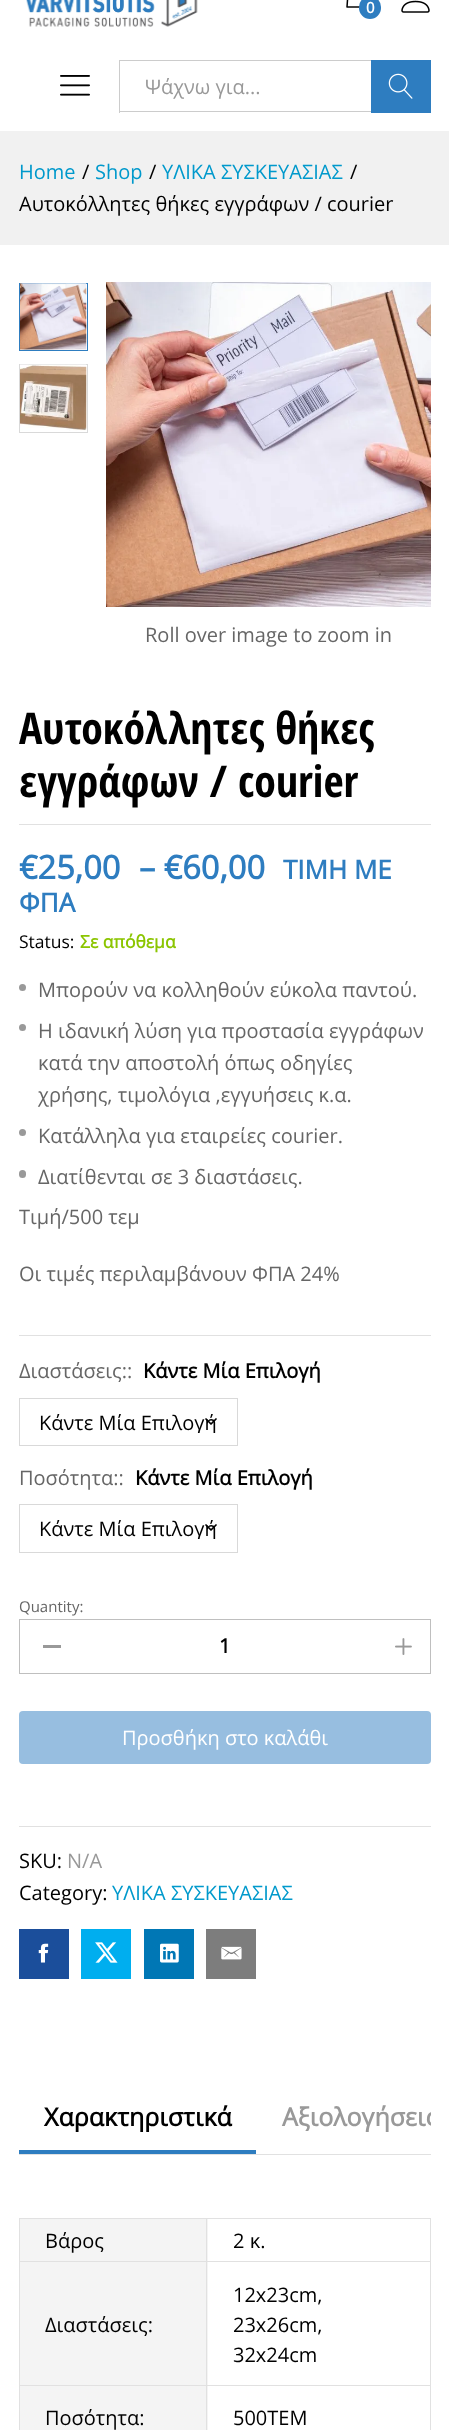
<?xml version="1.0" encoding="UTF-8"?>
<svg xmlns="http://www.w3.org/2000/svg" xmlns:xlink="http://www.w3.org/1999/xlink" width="449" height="2430">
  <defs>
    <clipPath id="clip1"><rect x="39" y="1413" width="179" height="20" /></clipPath>
    <clipPath id="clip2"><rect x="39" y="1519" width="179" height="20" /></clipPath>
    <clipPath id="clip3"><rect x="19" y="2104" width="412" height="50" /></clipPath>
  </defs>
  <rect width="100%" height="100%" fill="#ffffff" />
  <image x="26" y="0" width="172" height="27" xlink:href="image1.png" />
  <image x="346" y="0" width="14" height="8" xlink:href="image2.png" />
  <rect x="359" y="-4" width="22" height="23" rx="11" fill="#2e7dc0" />
  <image x="401" y="0" width="29" height="13" xlink:href="image3.png" />
  <image x="60" y="75" width="30" height="21" xlink:href="image4.png" />
  <rect x="119" y="60" width="252" height="1" fill="#cccccc" />
  <rect x="119" y="111" width="252" height="1" fill="#cccccc" />
  <rect x="119" y="60" width="1" height="53" fill="#cccccc" />
  <rect x="371" y="60" width="60" height="53" fill="#2e7dc0" />
  <image x="388" y="73" width="25" height="26" xlink:href="image5.png" />
  <rect y="131" width="449" height="114" fill="#f1f1f1" />
  <rect x="19.5" y="283.5" width="68" height="67" fill="none" stroke="#2e7dc0" />
  <image x="20" y="283" width="67" height="67" xlink:href="image6.png" />
  <rect x="19.5" y="364.5" width="68" height="68" fill="none" stroke="#d9d9d9" />
  <image x="20" y="364" width="67" height="67" xlink:href="image7.png" />
  <image x="106" y="282" width="325" height="325" xlink:href="image8.png" />
  <rect x="19" y="824" width="412" height="1" fill="#e1e1e1" />
  <rect x="19" y="1335" width="412" height="1" fill="#e1e1e1" />
  <circle cx="22.5" cy="987.5" r="3.5" fill="#999999" />
  <circle cx="22.5" cy="1027.5" r="3.5" fill="#999999" />
  <circle cx="22.5" cy="1132.5" r="3.5" fill="#999999" />
  <rect x="19" y="1170" width="7" height="8" rx="3.5" fill="#999999" />
  <path d="M 206 1419 l 5 5 l 5 -5" fill="none" stroke="#000000" stroke-width="1.7" stroke-linecap="round" stroke-linejoin="round" />
  <rect x="19.5" y="1398.5" width="218" height="47" fill="none" stroke="#d9d9d9" />
  <path d="M 206 1525 l 5 5 l 5 -5" fill="none" stroke="#000000" stroke-width="1.7" stroke-linecap="round" stroke-linejoin="round" />
  <rect x="19.5" y="1504.5" width="218" height="48" fill="none" stroke="#d9d9d9" />
  <rect x="19.5" y="1619.5" width="411" height="54" fill="none" stroke="#bfbfbf" />
  <rect x="43" y="1645" width="18" height="3" fill="#999999" />
  <image x="395" y="1638" width="17" height="17" xlink:href="image9.png" />
  <rect x="19" y="1711" width="412" height="53" rx="4" fill="#97bee0" />
  <rect x="19" y="1826" width="412" height="1" fill="#e1e1e1" />
  <rect x="19" y="1929" width="50" height="50" fill="#1b4e9b" />
  <image x="38" y="1943" width="11" height="20" xlink:href="image10.png" />
  <rect x="81" y="1929" width="50" height="50" fill="#00aeef" />
  <image x="95" y="1942" width="23" height="21" xlink:href="image11.png" />
  <rect x="144" y="1929" width="50" height="50" fill="#0077b5" />
  <image x="160" y="1943" width="19" height="20" xlink:href="image12.png" />
  <rect x="206" y="1929" width="50" height="50" fill="#7d7d7d" />
  <image x="221" y="1946" width="21" height="14" xlink:href="image13.png" />
  <rect x="19" y="2154" width="412" height="1" fill="#e1e1e1" />
  <rect x="19" y="2150" width="237" height="4" fill="#2e7dc0" />
  <rect x="19" y="2218" width="412" height="1" fill="#e1e1e1" />
  <rect x="430" y="2218" width="1" height="212" fill="#e1e1e1" />
  <rect x="19" y="2218" width="1" height="212" fill="#e1e1e1" />
  <rect x="20" y="2219" width="188" height="166" fill="#f4f4f4" />
  <rect x="20" y="2386" width="188" height="44" fill="#f4f4f4" />
  <rect x="206" y="2385" width="1" height="45" fill="#e1e1e1" />
  <rect x="206" y="2385" width="225" height="1" fill="#e1e1e1" />
  <rect x="206" y="2261" width="1" height="125" fill="#e1e1e1" />
  <rect x="206" y="2261" width="225" height="1" fill="#e1e1e1" />
  <rect x="206" y="2218" width="1" height="45" fill="#e1e1e1" />
  <rect x="19" y="2261" width="189" height="1" fill="#e1e1e1" />
  <rect x="19" y="2385" width="189" height="1" fill="#e1e1e1" />
  <text x="366" y="13" style="font-family: Open Sans; font-size: 15px; font-weight: bold; fill: #ffffff">0</text>
  <text x="145" y="94" style="font-family: Open Sans; font-size: 20px; fill: #999999">Ψάχνω για...</text>
  <text x="19" y="179" style="font-family: Open Sans; font-size: 20px; fill: #0099cc">Home</text>
  <text x="82" y="179" style="font-family: Open Sans; font-size: 20px; fill: #000000">/</text>
  <text x="95" y="179" style="font-family: Open Sans; font-size: 20px; fill: #0099cc">Shop</text>
  <text x="149" y="179" style="font-family: Open Sans; font-size: 20px; fill: #000000">/</text>
  <text x="162" y="179" style="font-family: Open Sans; font-size: 20px; fill: #0099cc">ΥΛΙΚΑ ΣΥΣΚΕΥΑΣΙΑΣ</text>
  <text x="350" y="179" style="font-family: Open Sans; font-size: 20px; fill: #000000">/</text>
  <text x="19" y="211" style="font-family: Open Sans; font-size: 20px; fill: #000000">Αυτοκόλλητες θήκες εγγράφων / courier</text>
  <text x="145" y="642" style="font-family: Open Sans; font-size: 20px; fill: #666666">Roll over image to zoom in</text>
  <text x="19" y="744" style="font-family: Open Sans Condensed; font-size: 43.75px; font-weight: bold; fill: #000000">Αυτοκόλλητες θήκες</text>
  <text x="19" y="797" style="font-family: Open Sans Condensed; font-size: 43.75px; font-weight: bold; fill: #000000">εγγράφων / courier</text>
  <text x="19" y="879" style="font-family: Open Sans; font-size: 32.5px; font-weight: bold; fill: #2e7dc0">€25,00</text>
  <text x="139" y="879" style="font-family: Open Sans; font-size: 32.5px; font-weight: bold; fill: #2e7dc0">– €60,00</text>
  <text x="283" y="879" style="font-family: Open Sans; font-size: 26px; font-weight: bold; fill: #2e7dc0">ΤΙΜΗ ΜΕ</text>
  <text x="19" y="912" style="font-family: Open Sans; font-size: 26px; font-weight: bold; fill: #2e7dc0">ΦΠΑ</text>
  <text x="19" y="948" style="font-family: Open Sans; font-size: 17.5px; fill: #000000">Status:</text>
  <text x="80" y="948" style="font-family: Open Sans; font-size: 17.5px; font-weight: bold; fill: #8bc500">Σε απόθεμα</text>
  <text x="38" y="997" style="font-family: Open Sans; font-size: 20px; fill: #666666">Μπορούν να κολληθούν εύκολα παντού.</text>
  <text x="38" y="1038" style="font-family: Open Sans; font-size: 20px; fill: #666666">Η ιδανική λύση για προστασία εγγράφων</text>
  <text x="38" y="1070" style="font-family: Open Sans; font-size: 20px; fill: #666666">κατά την αποστολή όπως οδηγίες</text>
  <text x="38" y="1102" style="font-family: Open Sans; font-size: 20px; fill: #666666">χρήσης, τιμολόγια ,εγγυήσεις κ.α.</text>
  <text x="38" y="1143" style="font-family: Open Sans; font-size: 20px; fill: #666666">Κατάλληλα για εταιρείες courier.</text>
  <text x="38" y="1184" style="font-family: Open Sans; font-size: 20px; fill: #666666">Διατίθενται σε 3 διαστάσεις.</text>
  <text x="19" y="1224" style="font-family: Open Sans; font-size: 20px; fill: #666666">Τιμή/500 τεμ</text>
  <text x="19" y="1281" style="font-family: Open Sans; font-size: 20px; fill: #666666">Οι τιμές περιλαμβάνουν ΦΠΑ 24%</text>
  <text x="19" y="1378" style="font-family: Open Sans; font-size: 20px; fill: #666666">Διαστάσεις::</text>
  <text x="143" y="1378" style="font-family: Open Sans; font-size: 20px; font-weight: bold; fill: #000000">Κάντε Μία Επιλογή</text>
  <g clip-path="url(#clip1)">
    <text x="39" y="1430" style="font-family: Open Sans; font-size: 20px; fill: #000000">Κάντε Μία Επιλογή</text>
  </g>
  <text x="19" y="1485" style="font-family: Open Sans; font-size: 20px; fill: #666666">Ποσότητα::</text>
  <text x="135" y="1485" style="font-family: Open Sans; font-size: 20px; font-weight: bold; fill: #000000">Κάντε Μία Επιλογή</text>
  <g clip-path="url(#clip2)">
    <text x="39" y="1536" style="font-family: Open Sans; font-size: 20px; fill: #000000">Κάντε Μία Επιλογή</text>
  </g>
  <text x="19" y="1612" style="font-family: Open Sans; font-size: 15px; fill: #666666">Quantity:</text>
  <text x="219" y="1653" style="font-family: Open Sans; font-size: 20px; font-weight: bold; fill: #000000">1</text>
  <text x="122" y="1745" style="font-family: Open Sans; font-size: 20px; fill: #ffffff">Προσθήκη στο καλάθι</text>
  <text x="19" y="1868" style="font-family: Open Sans; font-size: 20px; fill: #000000">SKU:</text>
  <text x="67" y="1868" style="font-family: Open Sans; font-size: 20px; fill: #999999">N/A</text>
  <text x="19" y="1900" style="font-family: Open Sans; font-size: 20px; fill: #000000">Category:</text>
  <text x="112" y="1900" style="font-family: Open Sans; font-size: 20px; fill: #0099cc">ΥΛΙΚΑ ΣΥΣΚΕΥΑΣΙΑΣ</text>
  <text x="44" y="2126" style="font-family: Open Sans; font-size: 25px; font-weight: bold; fill: #000000">Χαρακτηριστικά</text>
  <g clip-path="url(#clip3)">
    <text x="282" y="2126" style="font-family: Open Sans; font-size: 25px; font-weight: bold; fill: #999999">Αξιολογήσεις</text>
  </g>
  <text x="45" y="2248" style="font-family: Open Sans; font-size: 20px; fill: #000000">Βάρος</text>
  <text x="233" y="2248" style="font-family: Open Sans; font-size: 20px; fill: #000000">2 κ.</text>
  <text x="45" y="2332" style="font-family: Open Sans; font-size: 20px; fill: #000000">Διαστάσεις:</text>
  <text x="233" y="2302" style="font-family: Open Sans; font-size: 20px; fill: #000000">12x23cm,</text>
  <text x="233" y="2332" style="font-family: Open Sans; font-size: 20px; fill: #000000">23x26cm,</text>
  <text x="233" y="2362" style="font-family: Open Sans; font-size: 20px; fill: #000000">32x24cm</text>
  <text x="45" y="2425" style="font-family: Open Sans; font-size: 20px; fill: #000000">Ποσότητα:</text>
  <text x="233" y="2425" style="font-family: Open Sans; font-size: 20px; fill: #000000">500ΤΕΜ</text>
</svg>
